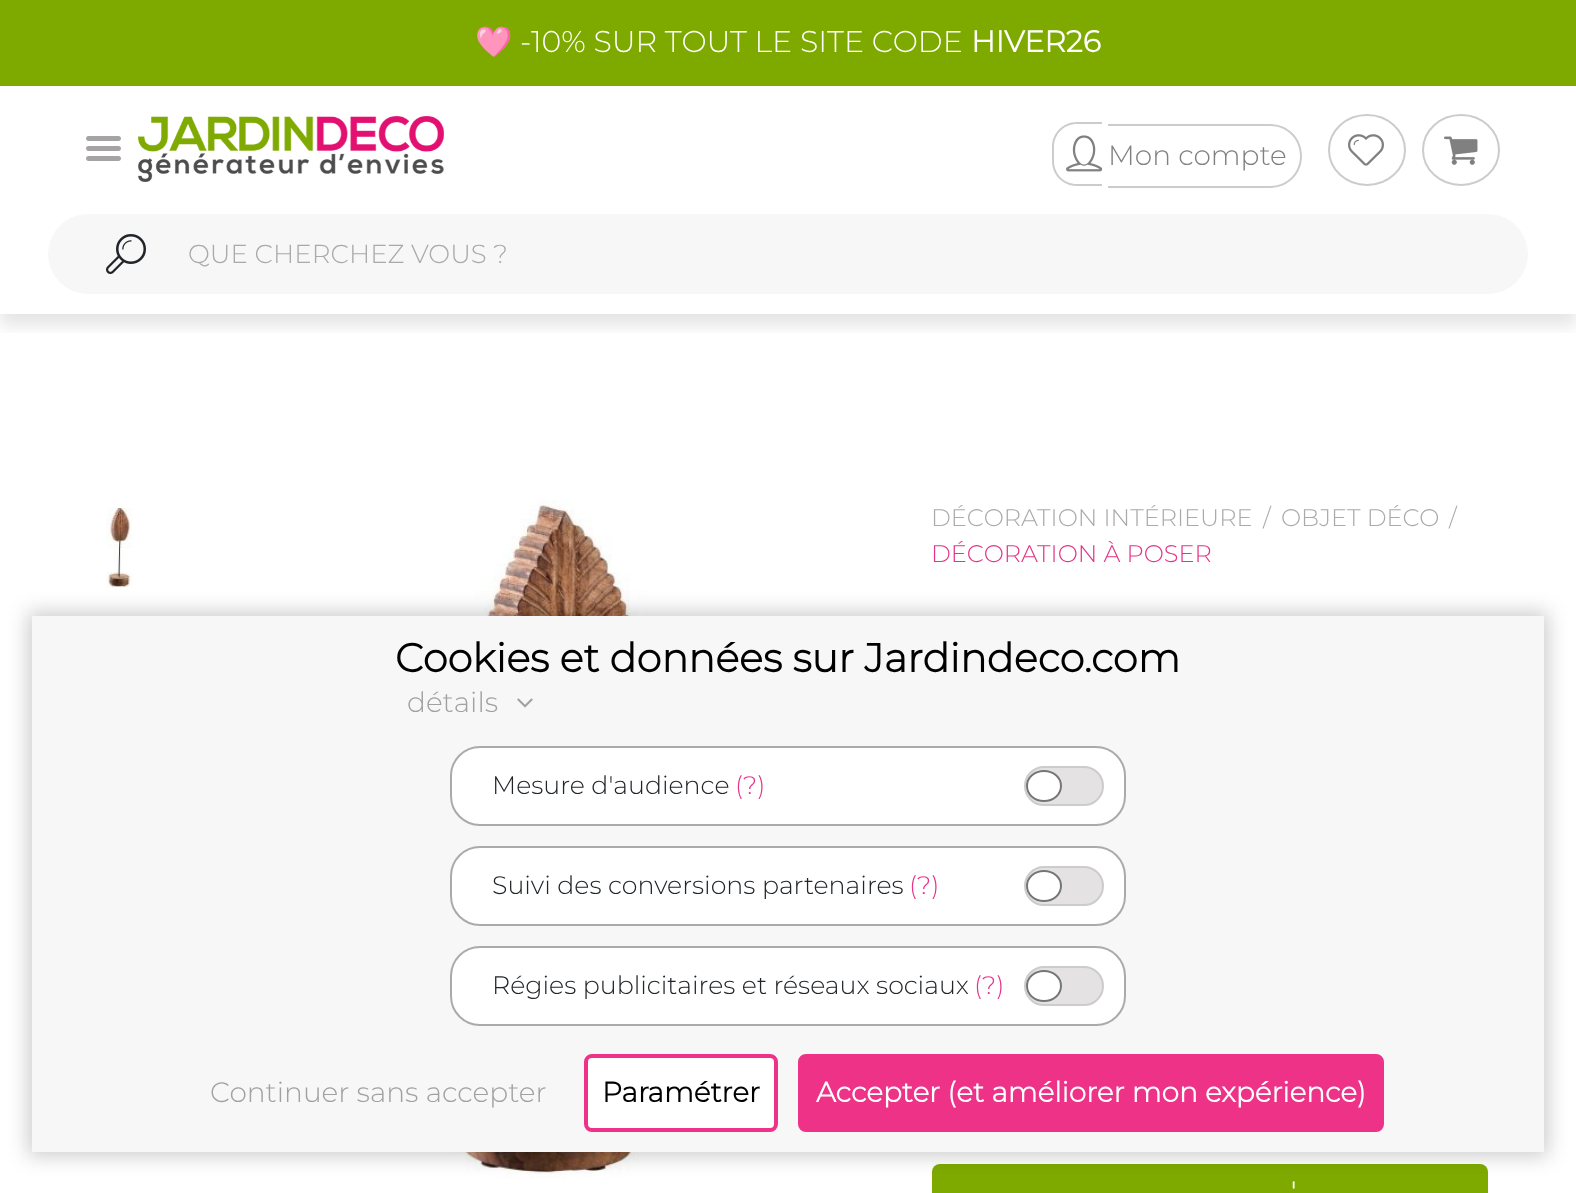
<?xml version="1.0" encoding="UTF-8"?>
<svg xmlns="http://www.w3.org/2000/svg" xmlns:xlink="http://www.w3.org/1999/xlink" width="1576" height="1193">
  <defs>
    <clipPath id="clip1"><rect x="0" y="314" width="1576" height="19" /></clipPath>
  </defs>
  <rect width="100%" height="100%" fill="#ffffff" />
  <g clip-path="url(#clip1)">
    <rect y="12" width="1576" height="314" fill="#000000" fill-opacity="0.1" filter="blur(8px)" />
  </g>
  <rect width="1576" height="86" fill="#7eaa00" />
  <image x="86" y="136" width="35" height="25" xlink:href="image1.png" />
  <image x="138" y="116" width="306" height="66" xlink:href="image2.png" />
  <path d="M 1077 122 h 25 v 64 h -25 c -14 0 -25 -11 -25 -25 v -14 c 0 -14 11 -25 25 -25 z m 0 2 h 25 v 60 h -25 c -13 0 -23 -10 -23 -23 v -14 c 0 -13 10 -23 23 -23 z" fill="#cccccc" fill-rule="evenodd" />
  <path d="M 1108 124 h 162 c 18 0 32 14 32 32 c 0 18 -14 32 -32 32 h -162 z m 0 2 h 162 c 17 0 30 13 30 30 c 0 17 -13 30 -30 30 h -162 z" fill="#cccccc" fill-rule="evenodd" />
  <image x="1066" y="135" width="37" height="37" xlink:href="image3.png" />
  <path d="M 1367 115 c 21 0 38 15.5 38 35 c 0 19.5 -17 35 -38 35 c -21 0 -38 -15.5 -38 -35 c 0 -19.5 17 -35 38 -35 z" fill="none" stroke="#cccccc" stroke-width="2" />
  <image x="1348" y="134" width="36" height="32" xlink:href="image4.png" />
  <path d="M 1461 115 c 21 0 38 15.5 38 35 c 0 19.5 -17 35 -38 35 c -21 0 -38 -15.5 -38 -35 c 0 -19.5 17 -35 38 -35 z" fill="none" stroke="#cccccc" stroke-width="2" />
  <image x="1444" y="136" width="34" height="29" xlink:href="image5.png" />
  <rect x="48" y="214" width="1480" height="80" rx="40" fill="#f7f7f7" />
  <image x="106" y="234" width="40" height="40" xlink:href="image6.png" />
  <image x="106" y="508" width="27" height="80" xlink:href="image7.png" />
  <image x="451" y="500" width="196" height="679" xlink:href="image8.png" />
  <rect x="932" y="1164" width="556" height="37" rx="8" fill="#7eaa00" />
  <rect x="28" y="612" width="1520" height="544" fill="#000000" fill-opacity="0.2" filter="blur(10px)" />
  <rect x="32" y="616" width="1512" height="536" fill="#f7f7f7" />
  <image x="517" y="698" width="16" height="10" xlink:href="image9.png" />
  <rect x="451" y="747" width="674" height="78" rx="29" fill="#ffffff" stroke="#aaaaaa" stroke-width="2" />
  <rect x="1025" y="767" width="78" height="38" rx="19" fill="#e4e2e2" stroke="#cccccc" stroke-width="2" />
  <ellipse cx="1044" cy="786" rx="18" ry="16" fill="#ffffff" />
  <path d="M 1044 771 c 9.5 0 17 6.5 17 15 c 0 8.5 -7.5 15 -17 15 c -9.5 0 -17 -6.5 -17 -15 c 0 -8.5 7.5 -15 17 -15 z" fill="none" stroke="#757575" stroke-width="2" />
  <rect x="451" y="847" width="674" height="78" rx="29" fill="#ffffff" stroke="#aaaaaa" stroke-width="2" />
  <rect x="1025" y="867" width="78" height="38" rx="19" fill="#e4e2e2" stroke="#cccccc" stroke-width="2" />
  <ellipse cx="1044" cy="886" rx="18" ry="16" fill="#ffffff" />
  <path d="M 1044 871 c 9.5 0 17 6.5 17 15 c 0 8.5 -7.5 15 -17 15 c -9.5 0 -17 -6.5 -17 -15 c 0 -8.5 7.5 -15 17 -15 z" fill="none" stroke="#757575" stroke-width="2" />
  <rect x="451" y="947" width="674" height="78" rx="29" fill="#ffffff" stroke="#aaaaaa" stroke-width="2" />
  <rect x="1025" y="967" width="78" height="38" rx="19" fill="#e4e2e2" stroke="#cccccc" stroke-width="2" />
  <ellipse cx="1044" cy="986" rx="18" ry="16" fill="#ffffff" />
  <path d="M 1044 971 c 9.5 0 17 6.5 17 15 c 0 8.5 -7.5 15 -17 15 c -9.5 0 -17 -6.5 -17 -15 c 0 -8.5 7.5 -15 17 -15 z" fill="none" stroke="#757575" stroke-width="2" />
  <rect x="586" y="1056" width="190" height="74" rx="6" fill="#ffffff" stroke="#ee3287" stroke-width="4" />
  <rect x="800" y="1056" width="582" height="74" rx="6" fill="#ee3287" stroke="#ee3287" stroke-width="4" />
  <text x="475" y="52" style="font-family: Noto Color Emoji; font-size: 30px; fill: #ffffff">🩷</text>
  <text x="520" y="52" style="font-family: Montserrat; font-size: 30px; font-weight: 300; fill: #ffffff">-10% SUR TOUT LE SITE CODE</text>
  <text x="971" y="52" style="font-family: Montserrat; font-size: 30px; font-weight: bold; fill: #ffffff">HIVER26</text>
  <text x="1108" y="165" style="font-family: Montserrat; font-size: 28px; font-weight: 300; fill: #808080">Mon compte</text>
  <text x="188" y="263" style="font-family: Montserrat; font-size: 26px; font-weight: 300; fill: #aaaaaa">QUE CHERCHEZ VOUS ?</text>
  <text x="931" y="526" style="font-family: Montserrat; font-size: 24px; font-weight: 300; fill: #aaaaaa">DÉCORATION INTÉRIEURE</text>
  <text x="1263" y="526" style="font-family: Montserrat; font-size: 24px; font-weight: 300; fill: #aaaaaa">/</text>
  <text x="1281" y="526" style="font-family: Montserrat; font-size: 24px; font-weight: 300; fill: #aaaaaa">OBJET DÉCO</text>
  <text x="1449" y="526" style="font-family: Montserrat; font-size: 24px; font-weight: 300; fill: #aaaaaa">/</text>
  <text x="931" y="562" style="font-family: Montserrat; font-size: 24px; font-weight: 300; fill: #e53388">DÉCORATION À POSER</text>
  <text x="1291" y="1199" style="font-family: Montserrat; font-size: 24px; font-weight: bold; fill: #ffffff">'</text>
  <text x="395" y="672" style="font-family: Montserrat; font-size: 40px; font-weight: bold; fill: #000000">Cookies et données sur Jardindeco.com</text>
  <text x="407" y="712" style="font-family: Montserrat; font-size: 28px; font-weight: 300; fill: #a1a1a1">détails</text>
  <text x="492" y="794" style="font-family: Montserrat; font-size: 25.25px; font-weight: 300; fill: #212529">Mesure d'audience</text>
  <text x="735" y="794" style="font-family: Montserrat; font-size: 25.25px; font-weight: 300; fill: #e53388">(?)</text>
  <text x="492" y="894" style="font-family: Montserrat; font-size: 25.25px; font-weight: 300; fill: #212529">Suivi des conversions partenaires</text>
  <text x="909" y="894" style="font-family: Montserrat; font-size: 25.25px; font-weight: 300; fill: #e53388">(?)</text>
  <text x="492" y="994" style="font-family: Montserrat; font-size: 25.25px; font-weight: 300; fill: #212529">Régies publicitaires et réseaux sociaux</text>
  <text x="974" y="994" style="font-family: Montserrat; font-size: 25.25px; font-weight: 300; fill: #e53388">(?)</text>
  <text x="210" y="1102" style="font-family: Montserrat; font-size: 28px; font-weight: 300; fill: #a1a1a1">Continuer sans accepter</text>
  <text x="602" y="1102" style="font-family: Montserrat; font-size: 28px; font-weight: bold; fill: #000000">Paramétrer</text>
  <text x="816" y="1102" style="font-family: Montserrat; font-size: 28px; font-weight: bold; fill: #ffffff">Accepter (et améliorer mon expérience)</text>
</svg>
